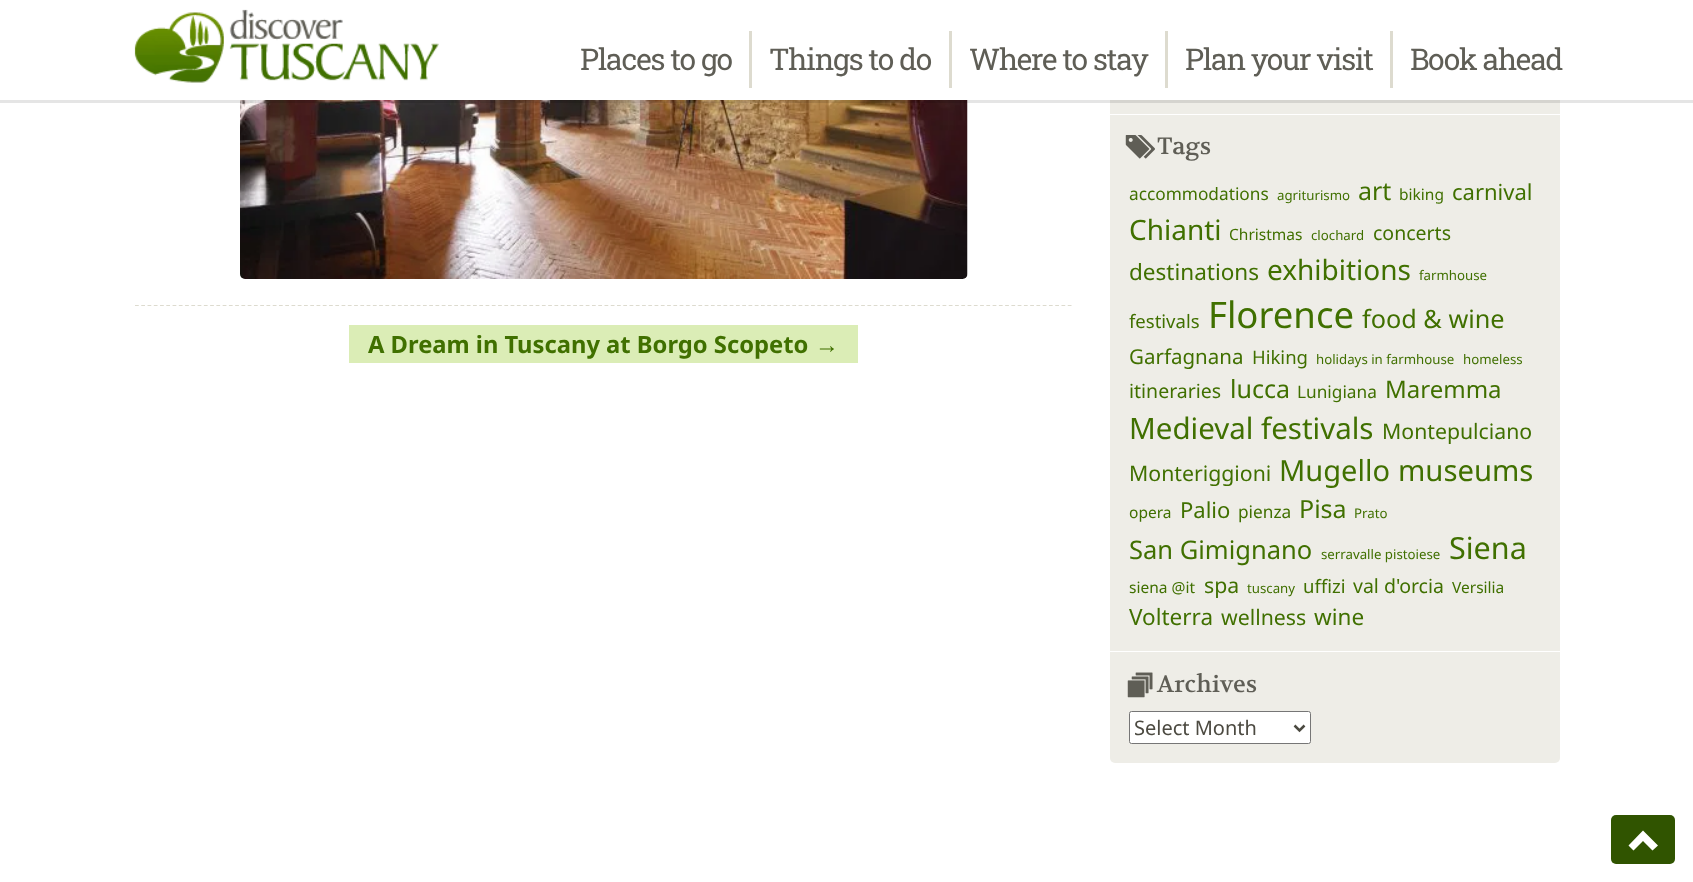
<?xml version="1.0" encoding="UTF-8"?>
<svg xmlns="http://www.w3.org/2000/svg" xmlns:xlink="http://www.w3.org/1999/xlink" width="1693" height="882">
  <rect width="100%" height="100%" fill="#ffffff" />
  <image x="240" y="100" width="728" height="179" xlink:href="image2.png" />
  <rect x="1110" y="-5" width="450" height="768" rx="5" fill="#eeede7" />
  <path d="M 0 100 v 3 h 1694 v -100 v 97 z" fill="#000000" fill-opacity="0.1" />
  <rect x="1110" width="450" height="100" fill="#ffffff" />
  <image x="134" y="9" width="305" height="74" xlink:href="image1.png" />
  <rect x="749" y="31" width="3" height="57" fill="#dddbcf" />
  <rect x="949" y="31" width="3" height="57" fill="#dddbcf" />
  <rect x="1165" y="31" width="3" height="57" fill="#dddbcf" />
  <rect x="1390" y="31" width="3" height="57" fill="#dddbcf" />
  <path d="M 135 305.5 h 937.5" fill="none" stroke="#dddbcf" stroke-width="1.2" stroke-dasharray="3.75 2.51" />
  <rect x="349" y="325" width="509" height="38" fill="#dbedb6" />
  <rect x="1110" y="114" width="450" height="1" fill="#ffffff" />
  <rect x="1110" y="651" width="450" height="1" fill="#ffffff" />
  <image x="1125" y="135" width="30" height="24" xlink:href="image3.png" />
  <image x="1127" y="672" width="26" height="26" xlink:href="image4.png" />
  <rect x="1129.5" y="711.5" width="181" height="32" rx="2" fill="#ffffff" stroke="#767676" />
  <path d="M 1294.5 725.5 l 5 5 l 5 -5" fill="none" stroke="#4c4a41" stroke-width="2.5" />
  <rect x="1611" y="815" width="64" height="49" rx="5" fill="#305400" />
  <path d="M 1658 845.5 l -5.5 5 l -9.5 -9.5 l -9.5 9.5 l -5 -5 l 14.5 -15 z" fill="#ffffff" />
  <text x="580" y="70" style="font-family: Roboto Slab; font-size: 30px; letter-spacing: -1.25px; fill: #5f5e56">Places to go</text>
  <text x="769" y="70" style="font-family: Roboto Slab; font-size: 30px; letter-spacing: -1.25px; fill: #5f5e56">Things to do</text>
  <text x="969" y="70" style="font-family: Roboto Slab; font-size: 30px; letter-spacing: -1.25px; fill: #5f5e56">Where to stay</text>
  <text x="1185" y="70" style="font-family: Roboto Slab; font-size: 30px; letter-spacing: -1.25px; fill: #5f5e56">Plan your visit</text>
  <text x="1410" y="70" style="font-family: Roboto Slab; font-size: 30px; letter-spacing: -1.25px; fill: #5f5e56">Book ahead</text>
  <text x="368" y="353" style="font-family: Noto Sans; font-size: 23.75px; font-weight: bold; fill: #407000">A Dream in Tuscany at Borgo Scopeto</text>
  <text x="815" y="353" style="font-family: Liberation Sans; font-size: 23.75px; font-weight: bold; fill: #407000">→</text>
  <text x="1157" y="154" style="font-family: Volkhov; font-size: 23.75px; fill: #5f5e56">Tags</text>
  <text x="1129" y="200" style="font-family: Noto Sans; font-size: 17.25px; fill: #407000">accommodations</text>
  <text x="1277" y="200" style="font-family: Noto Sans; font-size: 13.25px; fill: #407000">agriturismo</text>
  <text x="1358" y="200" style="font-family: Noto Sans; font-size: 25px; fill: #407000">art</text>
  <text x="1399" y="200" style="font-family: Noto Sans; font-size: 15.5px; fill: #407000">biking</text>
  <text x="1452" y="200" style="font-family: Noto Sans; font-size: 22px; fill: #407000">carnival</text>
  <text x="1129" y="240" style="font-family: Noto Sans; font-size: 28px; fill: #407000">Chianti</text>
  <text x="1229" y="240" style="font-family: Noto Sans; font-size: 15.5px; fill: #407000">Christmas</text>
  <text x="1311" y="240" style="font-family: Noto Sans; font-size: 13.25px; fill: #407000">clochard</text>
  <text x="1373" y="240" style="font-family: Noto Sans; font-size: 19.5px; fill: #407000">concerts</text>
  <text x="1129" y="280" style="font-family: Noto Sans; font-size: 22.5px; fill: #407000">destinations</text>
  <text x="1267" y="280" style="font-family: Noto Sans; font-size: 28px; fill: #407000">exhibitions</text>
  <text x="1419" y="280" style="font-family: Noto Sans; font-size: 13.25px; fill: #407000">farmhouse</text>
  <text x="1129" y="328" style="font-family: Noto Sans; font-size: 18.5px; fill: #407000">festivals</text>
  <text x="1208" y="328" style="font-family: Noto Sans; font-size: 36.5px; fill: #407000">Florence</text>
  <text x="1362" y="328" style="font-family: Noto Sans; font-size: 25.25px; fill: #407000">food &amp; wine</text>
  <text x="1129" y="364" style="font-family: Noto Sans; font-size: 20.5px; fill: #407000">Garfagnana</text>
  <text x="1252" y="364" style="font-family: Noto Sans; font-size: 18.5px; fill: #407000">Hiking</text>
  <text x="1316" y="364" style="font-family: Noto Sans; font-size: 13.25px; fill: #407000">holidays in farmhouse</text>
  <text x="1463" y="364" style="font-family: Noto Sans; font-size: 13.25px; fill: #407000">homeless</text>
  <text x="1129" y="398" style="font-family: Noto Sans; font-size: 19.5px; fill: #407000">itineraries</text>
  <text x="1230" y="398" style="font-family: Noto Sans; font-size: 25px; fill: #407000">lucca</text>
  <text x="1297" y="398" style="font-family: Noto Sans; font-size: 17.25px; fill: #407000">Lunigiana</text>
  <text x="1385" y="398" style="font-family: Noto Sans; font-size: 24px; fill: #407000">Maremma</text>
  <text x="1129" y="439" style="font-family: Noto Sans; font-size: 29.5px; fill: #407000">Medieval festivals</text>
  <text x="1382" y="439" style="font-family: Noto Sans; font-size: 21.25px; fill: #407000">Montepulciano</text>
  <text x="1129" y="481" style="font-family: Noto Sans; font-size: 21.25px; fill: #407000">Monteriggioni</text>
  <text x="1279" y="481" style="font-family: Noto Sans; font-size: 29px; fill: #407000">Mugello</text>
  <text x="1398" y="481" style="font-family: Noto Sans; font-size: 29.25px; fill: #407000">museums</text>
  <text x="1129" y="518" style="font-family: Noto Sans; font-size: 15.5px; fill: #407000">opera</text>
  <text x="1180" y="518" style="font-family: Noto Sans; font-size: 22px; fill: #407000">Palio</text>
  <text x="1238" y="518" style="font-family: Noto Sans; font-size: 17.25px; fill: #407000">pienza</text>
  <text x="1299" y="518" style="font-family: Noto Sans; font-size: 25px; fill: #407000">Pisa</text>
  <text x="1354" y="518" style="font-family: Noto Sans; font-size: 13.25px; fill: #407000">Prato</text>
  <text x="1129" y="559" style="font-family: Noto Sans; font-size: 25.5px; fill: #407000">San Gimignano</text>
  <text x="1321" y="559" style="font-family: Noto Sans; font-size: 13.25px; fill: #407000">serravalle pistoiese</text>
  <text x="1449" y="559" style="font-family: Noto Sans; font-size: 30.5px; fill: #407000">Siena</text>
  <text x="1129" y="593" style="font-family: Noto Sans; font-size: 15.5px; fill: #407000">siena @it</text>
  <text x="1204" y="593" style="font-family: Noto Sans; font-size: 21.25px; fill: #407000">spa</text>
  <text x="1247" y="593" style="font-family: Noto Sans; font-size: 13.25px; fill: #407000">tuscany</text>
  <text x="1303" y="593" style="font-family: Noto Sans; font-size: 18.5px; fill: #407000">uffizi</text>
  <text x="1353" y="593" style="font-family: Noto Sans; font-size: 19.5px; fill: #407000">val d'orcia</text>
  <text x="1452" y="593" style="font-family: Noto Sans; font-size: 15.5px; fill: #407000">Versilia</text>
  <text x="1129" y="625" style="font-family: Noto Sans; font-size: 22.5px; fill: #407000">Volterra</text>
  <text x="1221" y="625" style="font-family: Noto Sans; font-size: 21.25px; fill: #407000">wellness</text>
  <text x="1314" y="625" style="font-family: Noto Sans; font-size: 22.5px; fill: #407000">wine</text>
  <text x="1157" y="692" style="font-family: Volkhov; font-size: 23.75px; fill: #5f5e56">Archives</text>
  <text x="1134" y="735" style="font-family: Noto Sans; font-size: 20px; fill: #4c4a41">Select Month</text>
</svg>
